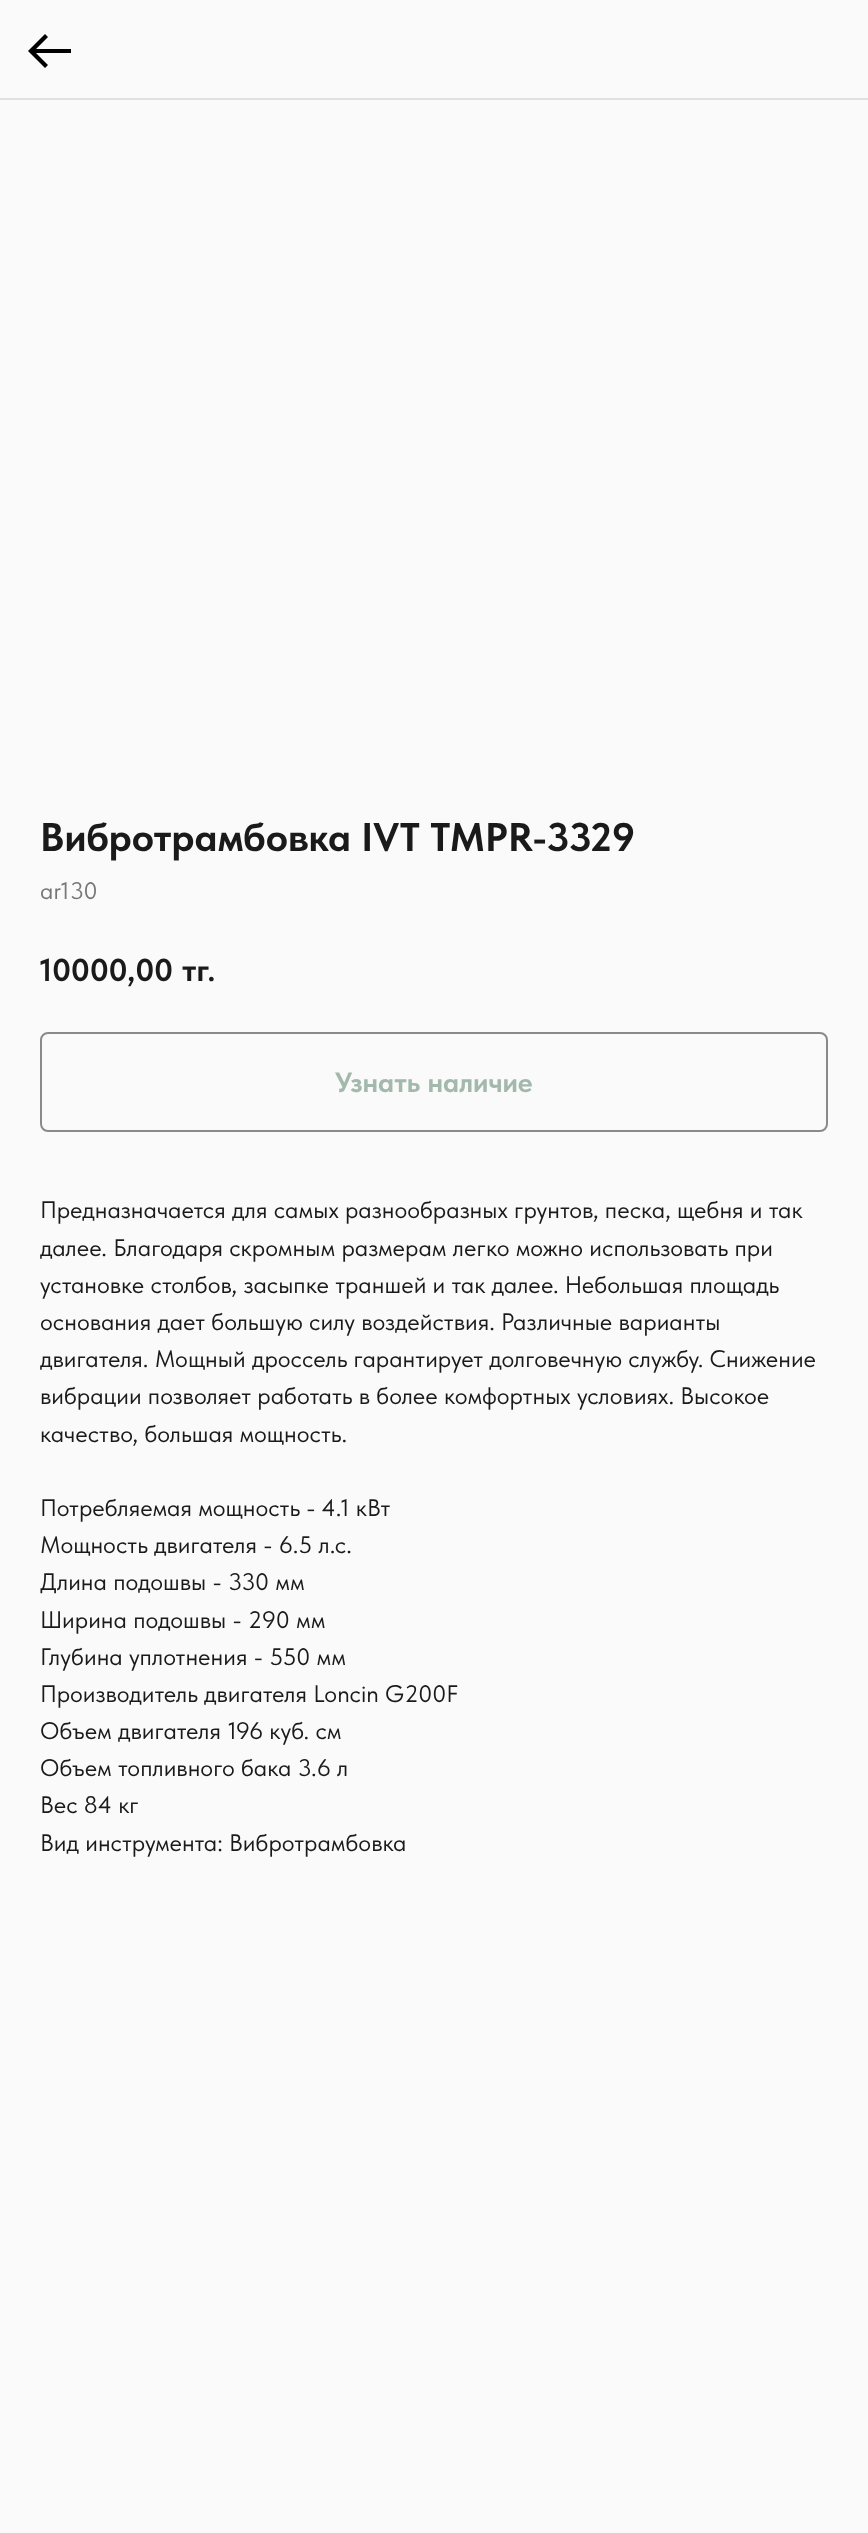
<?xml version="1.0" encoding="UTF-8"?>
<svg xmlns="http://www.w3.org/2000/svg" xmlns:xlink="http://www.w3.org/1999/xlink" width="868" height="2533">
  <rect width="100%" height="100%" fill="#fafafa" />
  <rect y="98" width="868" height="2" fill="#e1e1e1" />
  <path d="M 45 34 l 3 3 l -12 12 h 35 v 4 h -35 l 12 12 l -3 3 l -17 -17 z" fill="#000000" />
  <rect x="41" y="1033" width="786" height="98" rx="7" fill="none" stroke="#8a8a8a" stroke-width="2" />
  <text x="40" y="851" style="font-family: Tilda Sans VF; font-size: 40px; font-weight: bold; fill: #1a1a1a">Вибротрамбовка IVT TMPR-3329</text>
  <text x="40" y="899" style="font-family: Tilda Sans VF; font-size: 24px; fill: #777777">ar130</text>
  <text x="40" y="981" style="font-family: Tilda Sans VF; font-size: 32px; font-weight: bold; fill: #1a1a1a">10000,00</text>
  <text x="182" y="981" style="font-family: Tilda Sans VF; font-size: 32px; font-weight: bold; fill: #1a1a1a">тг.</text>
  <text x="335" y="1092" style="font-family: Tilda Sans VF; font-size: 28px; font-weight: bold; fill: #a3b9ac">Узнать наличие</text>
  <text x="40" y="1218" style="font-family: Tilda Sans VF; font-size: 24px; fill: #1a1a1a">Предназначается для самых разнообразных грунтов, песка, щебня и так</text>
  <text x="40" y="1256" style="font-family: Tilda Sans VF; font-size: 24px; fill: #1a1a1a">далее. Благодаря скромным размерам легко можно использовать при</text>
  <text x="40" y="1293" style="font-family: Tilda Sans VF; font-size: 24px; fill: #1a1a1a">установке столбов, засыпке траншей и так далее. Небольшая площадь</text>
  <text x="40" y="1330" style="font-family: Tilda Sans VF; font-size: 24px; fill: #1a1a1a">основания дает большую силу воздействия. Различные варианты</text>
  <text x="40" y="1367" style="font-family: Tilda Sans VF; font-size: 24px; fill: #1a1a1a">двигателя. Мощный дроссель гарантирует долговечную службу. Снижение</text>
  <text x="40" y="1404" style="font-family: Tilda Sans VF; font-size: 24px; fill: #1a1a1a">вибрации позволяет работать в более комфортных условиях. Высокое</text>
  <text x="40" y="1442" style="font-family: Tilda Sans VF; font-size: 24px; fill: #1a1a1a">качество, большая мощность.</text>
  <text x="40" y="1516" style="font-family: Tilda Sans VF; font-size: 24px; fill: #1a1a1a">Потребляемая мощность - 4.1 кВт</text>
  <text x="40" y="1553" style="font-family: Tilda Sans VF; font-size: 24px; fill: #1a1a1a">Мощность двигателя - 6.5 л.с.</text>
  <text x="40" y="1590" style="font-family: Tilda Sans VF; font-size: 24px; fill: #1a1a1a">Длина подошвы - 330 мм</text>
  <text x="40" y="1628" style="font-family: Tilda Sans VF; font-size: 24px; fill: #1a1a1a">Ширина подошвы - 290 мм</text>
  <text x="40" y="1665" style="font-family: Tilda Sans VF; font-size: 24px; fill: #1a1a1a">Глубина уплотнения - 550 мм</text>
  <text x="40" y="1702" style="font-family: Tilda Sans VF; font-size: 24px; fill: #1a1a1a">Производитель двигателя Loncin G200F</text>
  <text x="40" y="1739" style="font-family: Tilda Sans VF; font-size: 24px; fill: #1a1a1a">Объем двигателя 196 куб. см</text>
  <text x="40" y="1776" style="font-family: Tilda Sans VF; font-size: 24px; fill: #1a1a1a">Объем топливного бака 3.6 л</text>
  <text x="40" y="1813" style="font-family: Tilda Sans VF; font-size: 24px; fill: #1a1a1a">Вес 84 кг</text>
  <text x="40" y="1851" style="font-family: Tilda Sans VF; font-size: 24px; fill: #1a1a1a">Вид инструмента: Вибротрамбовка</text>
</svg>
